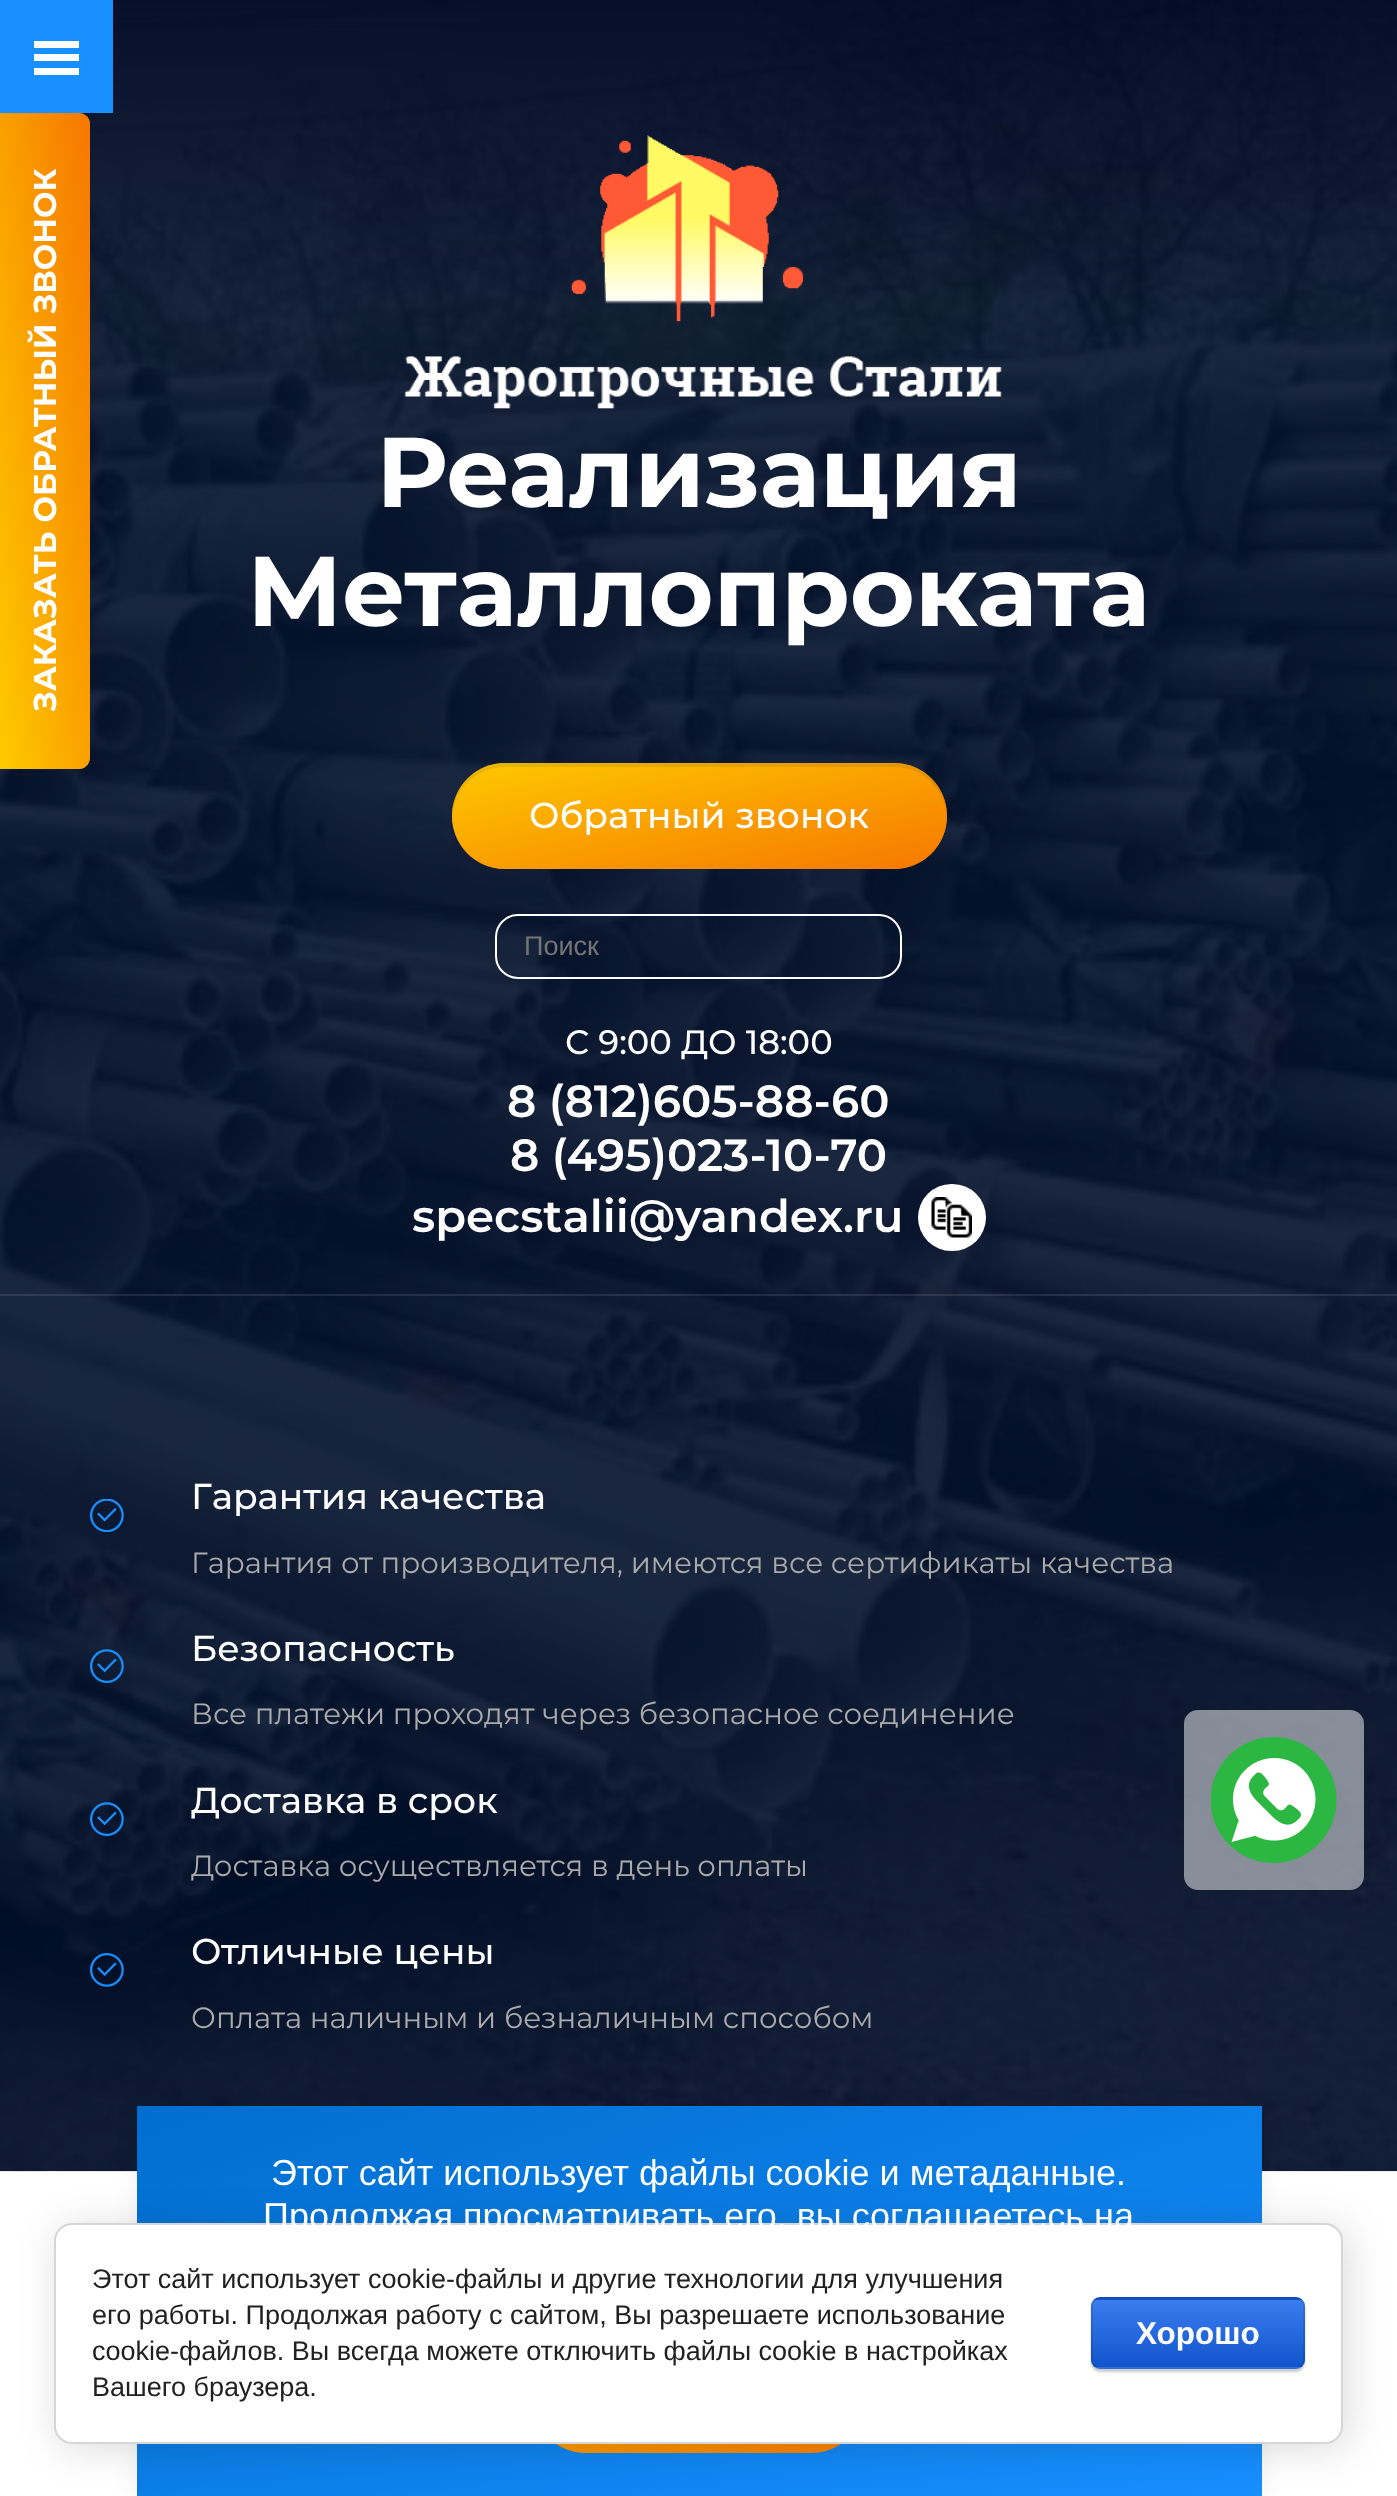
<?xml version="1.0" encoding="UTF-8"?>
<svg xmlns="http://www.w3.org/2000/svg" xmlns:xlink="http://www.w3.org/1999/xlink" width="1397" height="2496">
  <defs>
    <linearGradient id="g1" gradientUnits="userSpaceOnUse" x1="-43" y1="453" x2="133" y2="428"><stop offset="0" stop-color="#ffdd00" stop-opacity="0.76" /><stop offset="1" stop-color="#f57200" stop-opacity="0.76" /></linearGradient>
    <linearGradient id="g2" gradientUnits="userSpaceOnUse" x1="678" y1="714" x2="721" y2="917"><stop offset="0" stop-color="#ffdd00" stop-opacity="0.76" /><stop offset="1" stop-color="#f57200" stop-opacity="0.76" /></linearGradient>
    <linearGradient id="g3" gradientUnits="userSpaceOnUse" x1="578" y1="1953" x2="821" y2="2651"><stop offset="0" stop-color="#006ecf" /><stop offset="1" stop-color="#178fff" /></linearGradient>
    <linearGradient id="g4" gradientUnits="userSpaceOnUse" x1="668" y1="2304" x2="729" y2="2496"><stop offset="0" stop-color="#ffdd00" stop-opacity="0.45" /><stop offset="1" stop-color="#f57200" stop-opacity="0.45" /></linearGradient>
    <clipPath id="clip1"><rect x="1091" y="2297" width="214" height="72" rx="9" /></clipPath>
    <linearGradient id="g5" gradientUnits="userSpaceOnUse" x1="1198" y1="2232" x2="1198" y2="2300"><stop offset="0" stop-color="#3b7cef" /><stop offset="1" stop-color="#1155cc" /></linearGradient>
    <linearGradient id="g6" gradientUnits="userSpaceOnUse" x1="1198" y1="2300" x2="1198" y2="2367"><stop offset="0" stop-color="#3b7cef" /><stop offset="1" stop-color="#1155cc" /></linearGradient>
    <linearGradient id="g7" gradientUnits="userSpaceOnUse" x1="1198" y1="2367" x2="1198" y2="2435"><stop offset="0" stop-color="#3b7cef" /><stop offset="1" stop-color="#1155cc" /></linearGradient>
  </defs>
  <rect width="100%" height="100%" fill="#ffffff" />
  <image x="0" y="0" width="1397" height="2172" xlink:href="image1.png" />
  <path d="M 0 769 v -656 h 79 c 6 0 11 5 11 11 v 633 c 0 7 -5 12 -11 12 z" fill="#fa8a00" />
  <path d="M 0 769 v -656 h 79 c 6 0 11 5 11 11 v 633 c 0 7 -5 12 -11 12 z" fill="url(#g1)" />
  <rect width="113" height="113" fill="#178fff" />
  <rect x="34" y="41" width="45" height="7" fill="#ffffff" />
  <rect x="34" y="54" width="45" height="7" fill="#ffffff" />
  <rect x="34" y="68" width="45" height="7" fill="#ffffff" />
  <image x="404" y="135" width="598" height="274" xlink:href="image2.png" />
  <rect y="1294" width="1397" height="2" fill="#ffffff" fill-opacity="0.1" />
  <rect x="452" y="763" width="495" height="106" rx="53" fill="#fa8a00" />
  <rect x="452" y="763" width="495" height="106" rx="53" fill="url(#g2)" />
  <path d="M 505 767 h 389 c 29 0 52 23 53 51 v -2 c 0 -29 -24 -53 -53 -53 h -389 c -29 0 -53 24 -53 53 v 2 c 1 -28 25 -51 53 -51 z" fill="#000000" fill-opacity="0.08" />
  <rect x="496" y="915" width="405" height="63" rx="22" fill="none" stroke="#ffffff" stroke-width="2" />
  <rect x="918" y="1184" width="68" height="67" rx="33.5" fill="#ffffff" />
  <image x="931" y="1197" width="41" height="41" xlink:href="image3.png" />
  <image x="90" y="1499" width="34" height="33" xlink:href="image4.png" />
  <image x="90" y="1649" width="34" height="34" xlink:href="image5.png" />
  <image x="90" y="1802" width="34" height="34" xlink:href="image6.png" />
  <image x="90" y="1953" width="34" height="34" xlink:href="image7.png" />
  <rect x="1184" y="1710" width="180" height="180" rx="14" fill="#ffffff" fill-opacity="0.5" />
  <image x="1211" y="1737" width="126" height="126" xlink:href="image8.png" />
  <rect x="137" y="2108" width="1125" height="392" fill="#000000" fill-opacity="0.06" filter="blur(11px)" />
  <rect x="137" y="2106" width="1125" height="390" fill="url(#g3)" />
  <rect x="533" y="2347" width="331" height="106" rx="53" fill="#fa8a00" />
  <rect x="533" y="2347" width="331" height="106" rx="53" fill="url(#g4)" />
  <rect x="59" y="2228" width="1289" height="220" rx="18" fill="#000000" fill-opacity="0.14" filter="blur(20px)" />
  <rect x="55" y="2224" width="1287" height="219" rx="17" fill="#ffffff" stroke="#d6d6d6" stroke-width="2" />
  <rect x="1091" y="2300" width="214" height="72" rx="9" fill="#000000" fill-opacity="0.2" filter="blur(1px)" />
  <g clip-path="url(#clip1)">
    <rect x="1091" y="2297" width="214" height="3" fill="url(#g5)" />
    <rect x="1091" y="2300" width="214" height="67" fill="url(#g6)" />
    <rect x="1091" y="2367" width="214" height="2" fill="url(#g7)" />
  </g>
  <rect x="1092" y="2298" width="212" height="70" rx="8" fill="none" stroke="#000000" stroke-opacity="0.1" stroke-width="2" />
  <text x="56" y="712" transform="rotate(-90 56 712)" style="font-family: Montserrat; font-size: 31.5px; font-weight: bold; fill: #ffffff">ЗАКАЗАТЬ ОБРАТНЫЙ ЗВОНОК</text>
  <text x="376" y="507" style="font-family: Montserrat; font-size: 99px; font-weight: bold; fill: #ffffff">Реализация</text>
  <text x="247" y="626" style="font-family: Montserrat; font-size: 99px; font-weight: bold; fill: #ffffff">Металлопроката</text>
  <text x="529" y="828" style="font-family: Montserrat; font-size: 36px; font-weight: 500; fill: #ffffff">Обратный звонок</text>
  <text x="524" y="955" style="font-family: Liberation Sans; font-size: 27px; fill: #757575">Поиск</text>
  <text x="565" y="1054" style="font-family: Montserrat; font-size: 33.75px; font-weight: 500; fill: #ffffff">С 9:00 ДО 18:00</text>
  <text x="507" y="1117" style="font-family: Montserrat; font-size: 45px; font-weight: 600; fill: #ffffff">8 (812)605-88-60</text>
  <text x="510" y="1171" style="font-family: Montserrat; font-size: 45px; font-weight: 600; fill: #ffffff">8 (495)023-10-70</text>
  <text x="412" y="1232" style="font-family: Montserrat; font-size: 45px; font-weight: 600; fill: #ffffff">specstalii@yandex.ru</text>
  <text x="191" y="1509" style="font-family: Montserrat; font-size: 36px; font-weight: 500; fill: #ffffff">Гарантия качества</text>
  <text x="191" y="1573" style="font-family: Montserrat; font-size: 29.25px; fill: #aaaaaa">Гарантия от производителя, имеются все сертификаты качества</text>
  <text x="191" y="1661" style="font-family: Montserrat; font-size: 36px; font-weight: 500; fill: #ffffff">Безопасность</text>
  <text x="191" y="1724" style="font-family: Montserrat; font-size: 29.25px; fill: #aaaaaa">Все платежи проходят через безопасное соединение</text>
  <text x="191" y="1813" style="font-family: Montserrat; font-size: 36px; font-weight: 500; fill: #ffffff">Доставка в срок</text>
  <text x="191" y="1876" style="font-family: Montserrat; font-size: 29.25px; fill: #aaaaaa">Доставка осуществляется в день оплаты</text>
  <text x="191" y="1964" style="font-family: Montserrat; font-size: 36px; font-weight: 500; fill: #ffffff">Отличные цены</text>
  <text x="191" y="2028" style="font-family: Montserrat; font-size: 29.25px; fill: #aaaaaa">Оплата наличным и безналичным способом</text>
  <text x="271" y="2185" style="font-family: Liberation Sans; font-size: 36px; fill: #ffffff">Этот сайт использует файлы cookie и метаданные.</text>
  <text x="263" y="2228" style="font-family: Liberation Sans; font-size: 36px; fill: #ffffff">Продолжая просматривать его, вы соглашаетесь на</text>
  <text x="92" y="2288" style="font-family: Liberation Sans; font-size: 27px; fill: #212121">Этот сайт использует cookie-файлы и другие технологии для улучшения</text>
  <text x="92" y="2324" style="font-family: Liberation Sans; font-size: 27px; fill: #212121">его работы. Продолжая работу с сайтом, Вы разрешаете использование</text>
  <text x="92" y="2360" style="font-family: Liberation Sans; font-size: 27px; fill: #212121">cookie-файлов. Вы всегда можете отключить файлы cookie в настройках</text>
  <text x="92" y="2396" style="font-family: Liberation Sans; font-size: 27px; fill: #212121">Вашего браузера.</text>
  <text x="1136" y="2344" style="font-family: Liberation Sans; font-size: 31.5px; font-weight: bold; fill: #ffffff">Хорошо</text>
</svg>
